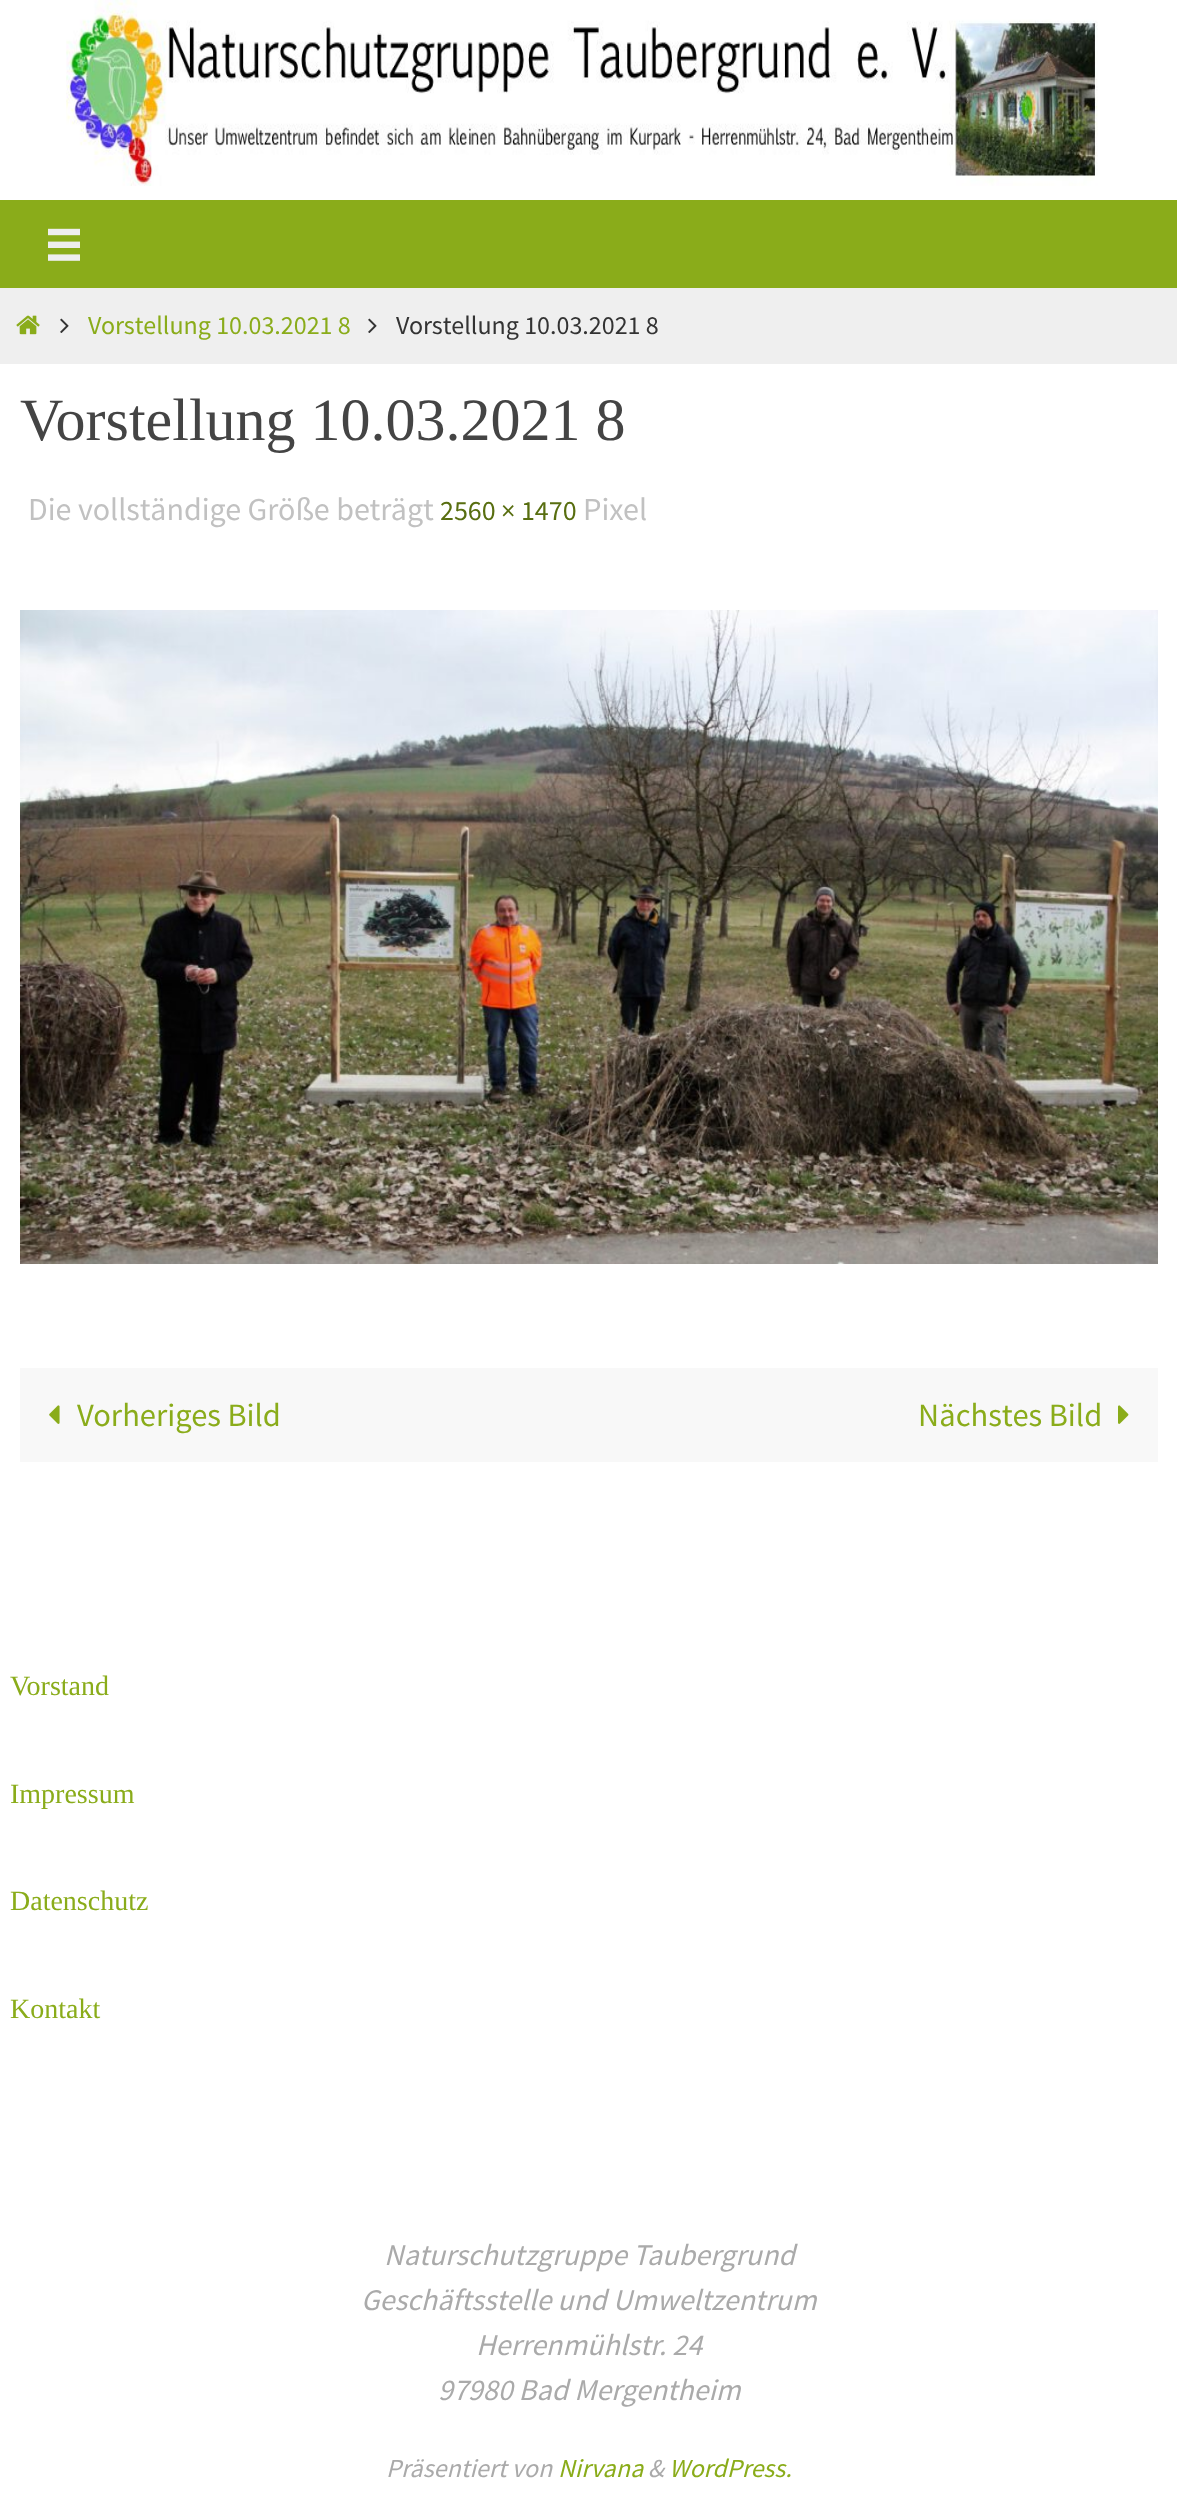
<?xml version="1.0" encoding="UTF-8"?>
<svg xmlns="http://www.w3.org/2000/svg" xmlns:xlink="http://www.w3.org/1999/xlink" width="1177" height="2511">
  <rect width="100%" height="100%" fill="#ffffff" />
  <image x="66" y="0" width="1032" height="186" xlink:href="image1.png" />
  <rect y="200" width="1177" height="88" fill="#8aac1a" />
  <image x="48" y="228" width="32" height="33" xlink:href="image2.png" />
  <rect y="288" width="1177" height="76" fill="#efefef" />
  <image x="16" y="315" width="24" height="20" xlink:href="image3.png" />
  <image x="60" y="318" width="9" height="15" xlink:href="image4.png" />
  <image x="368" y="318" width="9" height="15" xlink:href="image4.png" />
  <image x="20" y="610" width="1138" height="654" xlink:href="image5.png" />
  <rect x="20" y="1368" width="1138" height="94" fill="#f8f8f8" />
  <image x="49" y="1405" width="11" height="19" xlink:href="image6.png" />
  <image x="1118" y="1405" width="11" height="19" xlink:href="image7.png" />
  <text x="88" y="334" style="font-family: Source Sans Pro; font-size: 26px; fill: #8aac1a">Vorstellung 10.03.2021 8</text>
  <text x="396" y="334" style="font-family: Source Sans Pro; font-size: 26px; fill: #333333">Vorstellung 10.03.2021 8</text>
  <text x="20" y="440" style="font-family: Liberation Serif; font-size: 60px; fill: #444444">Vorstellung 10.03.2021 8</text>
  <text x="28" y="520" style="font-family: Source Sans Pro; font-size: 32px; fill: #c1c1c1">Die vollständige Größe beträgt</text>
  <text x="440" y="520" style="font-family: Source Sans Pro; font-size: 28px; fill: #586e10">2560 × 1470</text>
  <text x="583" y="520" style="font-family: Source Sans Pro; font-size: 32px; fill: #c1c1c1">Pixel</text>
  <text x="77" y="1426" style="font-family: Source Sans Pro; font-size: 32.5px; fill: #8aac1a">Vorheriges Bild</text>
  <text x="918" y="1426" style="font-family: Source Sans Pro; font-size: 32.5px; fill: #8aac1a">Nächstes Bild</text>
  <text x="10" y="1695" style="font-family: Liberation Serif; font-size: 28px; fill: #8aac1a">Vorstand</text>
  <text x="10" y="1803" style="font-family: Liberation Serif; font-size: 28px; fill: #8aac1a">Impressum</text>
  <text x="10" y="1910" style="font-family: Liberation Serif; font-size: 28px; fill: #8aac1a">Datenschutz</text>
  <text x="10" y="2018" style="font-family: Liberation Serif; font-size: 28px; fill: #8aac1a">Kontakt</text>
  <text x="384" y="2265" style="font-family: Source Sans Pro; font-size: 30px; font-style: italic; fill: #aaaaaa">Naturschutzgruppe Taubergrund</text>
  <text x="361" y="2310" style="font-family: Source Sans Pro; font-size: 30px; font-style: italic; fill: #aaaaaa">Geschäftsstelle und Umweltzentrum</text>
  <text x="476" y="2355" style="font-family: Source Sans Pro; font-size: 30px; font-style: italic; fill: #aaaaaa">Herrenmühlstr. 24</text>
  <text x="438" y="2400" style="font-family: Source Sans Pro; font-size: 30px; font-style: italic; fill: #aaaaaa">97980 Bad Mergentheim</text>
  <text x="386" y="2477" style="font-family: Source Sans Pro; font-size: 26px; font-style: italic; fill: #aaaaaa">Präsentiert von</text>
  <text x="558" y="2477" style="font-family: Source Sans Pro; font-size: 26px; font-style: italic; fill: #8aac1a">Nirvana</text>
  <text x="648" y="2477" style="font-family: Source Sans Pro; font-size: 26px; font-style: italic; fill: #aaaaaa">&amp;</text>
  <text x="669" y="2477" style="font-family: Source Sans Pro; font-size: 26px; font-style: italic; fill: #8aac1a">WordPress.</text>
</svg>
